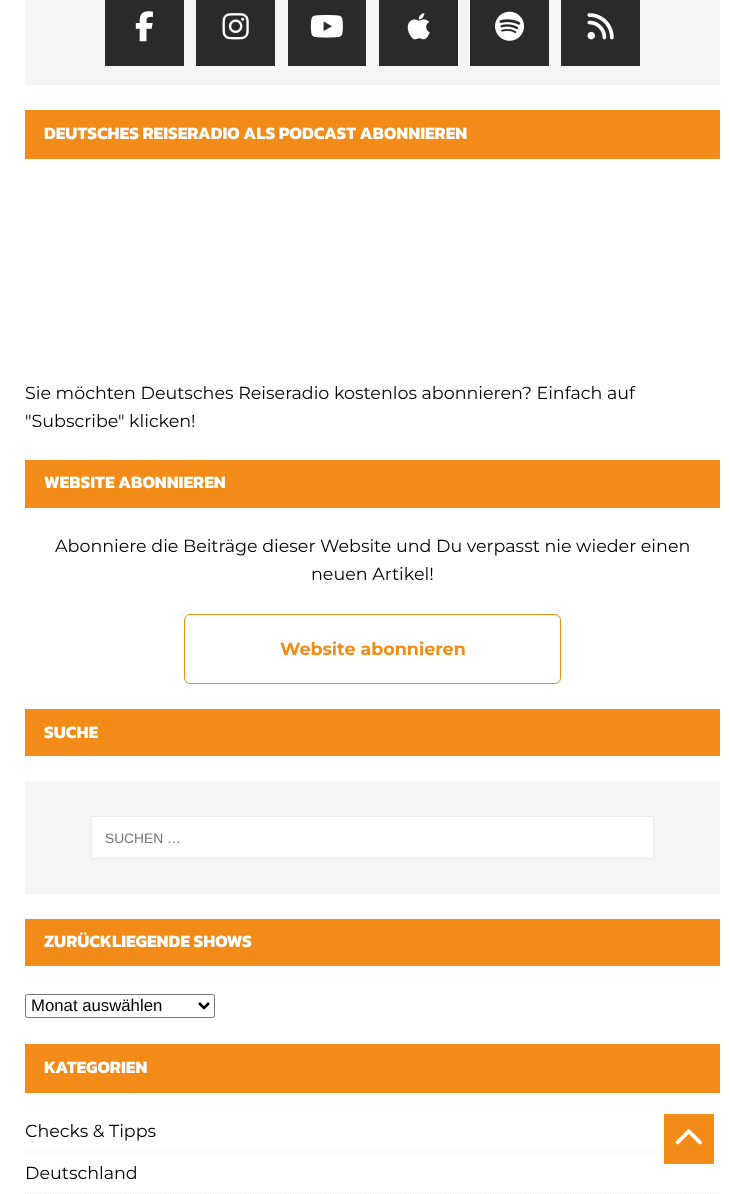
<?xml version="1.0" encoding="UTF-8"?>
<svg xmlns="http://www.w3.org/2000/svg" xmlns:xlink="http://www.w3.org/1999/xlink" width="745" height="1194">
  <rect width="100%" height="100%" fill="#ffffff" />
  <rect x="25" width="695" height="85" fill="#f5f5f5" />
  <rect x="105" width="79" height="66" fill="#2a2a2a" />
  <image x="135" y="11" width="18" height="31" xlink:href="image1.png" />
  <rect x="196" width="79" height="66" fill="#2a2a2a" />
  <image x="222" y="13" width="27" height="27" xlink:href="image2.png" />
  <rect x="288" width="78" height="66" fill="#2a2a2a" />
  <image x="310" y="15" width="33" height="23" xlink:href="image3.png" />
  <rect x="379" width="79" height="66" fill="#2a2a2a" />
  <image x="407" y="13" width="23" height="27" xlink:href="image4.png" />
  <rect x="470" width="79" height="66" fill="#2a2a2a" />
  <image x="495" y="11" width="30" height="30" xlink:href="image5.png" />
  <rect x="561" width="79" height="66" fill="#2a2a2a" />
  <image x="587" y="13" width="27" height="27" xlink:href="image6.png" />
  <rect x="25" y="110" width="695" height="49" fill="#f28b17" />
  <rect x="25" y="460" width="695" height="48" fill="#f28b17" />
  <rect x="184.5" y="614.5" width="376" height="69" rx="5.5" fill="none" stroke="#f28c17" />
  <rect x="25" y="709" width="695" height="47" fill="#f28b17" />
  <rect x="25" y="781" width="695" height="113" fill="#f5f5f5" />
  <rect x="91.5" y="816.5" width="562" height="42" fill="#ffffff" stroke="#ebebeb" />
  <rect x="25" y="919" width="695" height="47" fill="#f28b17" />
  <rect x="25.5" y="994.5" width="189" height="23" rx="2" fill="none" stroke="#767676" />
  <path d="M 199 1003 l 5 5 l 5 -5" fill="none" stroke="#000000" stroke-width="2.5" />
  <rect x="25" y="1044" width="695" height="49" fill="#f28b17" />
  <path d="M 25 1152 h 695" fill="none" stroke="#ebebeb" stroke-width="1.2" stroke-dasharray="1.25 1.25" />
  <path d="M 25 1193 h 695" fill="none" stroke="#ebebeb" stroke-width="1.2" stroke-dasharray="1.25 1.25" />
  <rect x="664" y="1114" width="50" height="50" fill="#f28b17" />
  <image x="675" y="1129" width="27" height="16" xlink:href="image7.png" />
  <text x="44" y="139" style="font-family: Kanit; font-size: 17.5px; font-weight: bold; fill: #ffffff">DEUTSCHES REISERADIO ALS PODCAST ABONNIEREN</text>
  <text x="25" y="399" style="font-family: Montserrat; font-size: 17.5px; fill: #000000">Sie möchten Deutsches Reiseradio kostenlos abonnieren? Einfach auf</text>
  <text x="25" y="427" style="font-family: Montserrat; font-size: 17.5px; fill: #000000">"Subscribe" klicken!</text>
  <text x="44" y="488" style="font-family: Kanit; font-size: 17.5px; font-weight: bold; fill: #ffffff">WEBSITE ABONNIEREN</text>
  <text x="55" y="552" style="font-family: Montserrat; font-size: 17.5px; fill: #000000">Abonniere die Beiträge dieser Website und Du verpasst nie wieder einen</text>
  <text x="311" y="580" style="font-family: Montserrat; font-size: 17.5px; fill: #000000">neuen Artikel!</text>
  <text x="280" y="655" style="font-family: Montserrat; font-size: 17.5px; font-weight: bold; fill: #f28c17">Website abonnieren</text>
  <text x="44" y="738" style="font-family: Kanit; font-size: 17.5px; font-weight: bold; fill: #ffffff">SUCHE</text>
  <text x="105" y="843" style="font-family: Liberation Sans; font-size: 13.75px; fill: #757575">SUCHEN …</text>
  <text x="44" y="947" style="font-family: Kanit; font-size: 17.5px; font-weight: bold; fill: #ffffff">ZURÜCKLIEGENDE SHOWS</text>
  <text x="31" y="1011" style="font-family: Liberation Sans; font-size: 16.75px; fill: #000000">Monat auswählen</text>
  <text x="44" y="1073" style="font-family: Kanit; font-size: 17.5px; font-weight: bold; fill: #ffffff">KATEGORIEN</text>
  <text x="25" y="1137" style="font-family: Montserrat; font-size: 17.5px; fill: #000000">Checks &amp; Tipps</text>
  <text x="25" y="1179" style="font-family: Montserrat; font-size: 17.5px; fill: #000000">Deutschland</text>
</svg>
